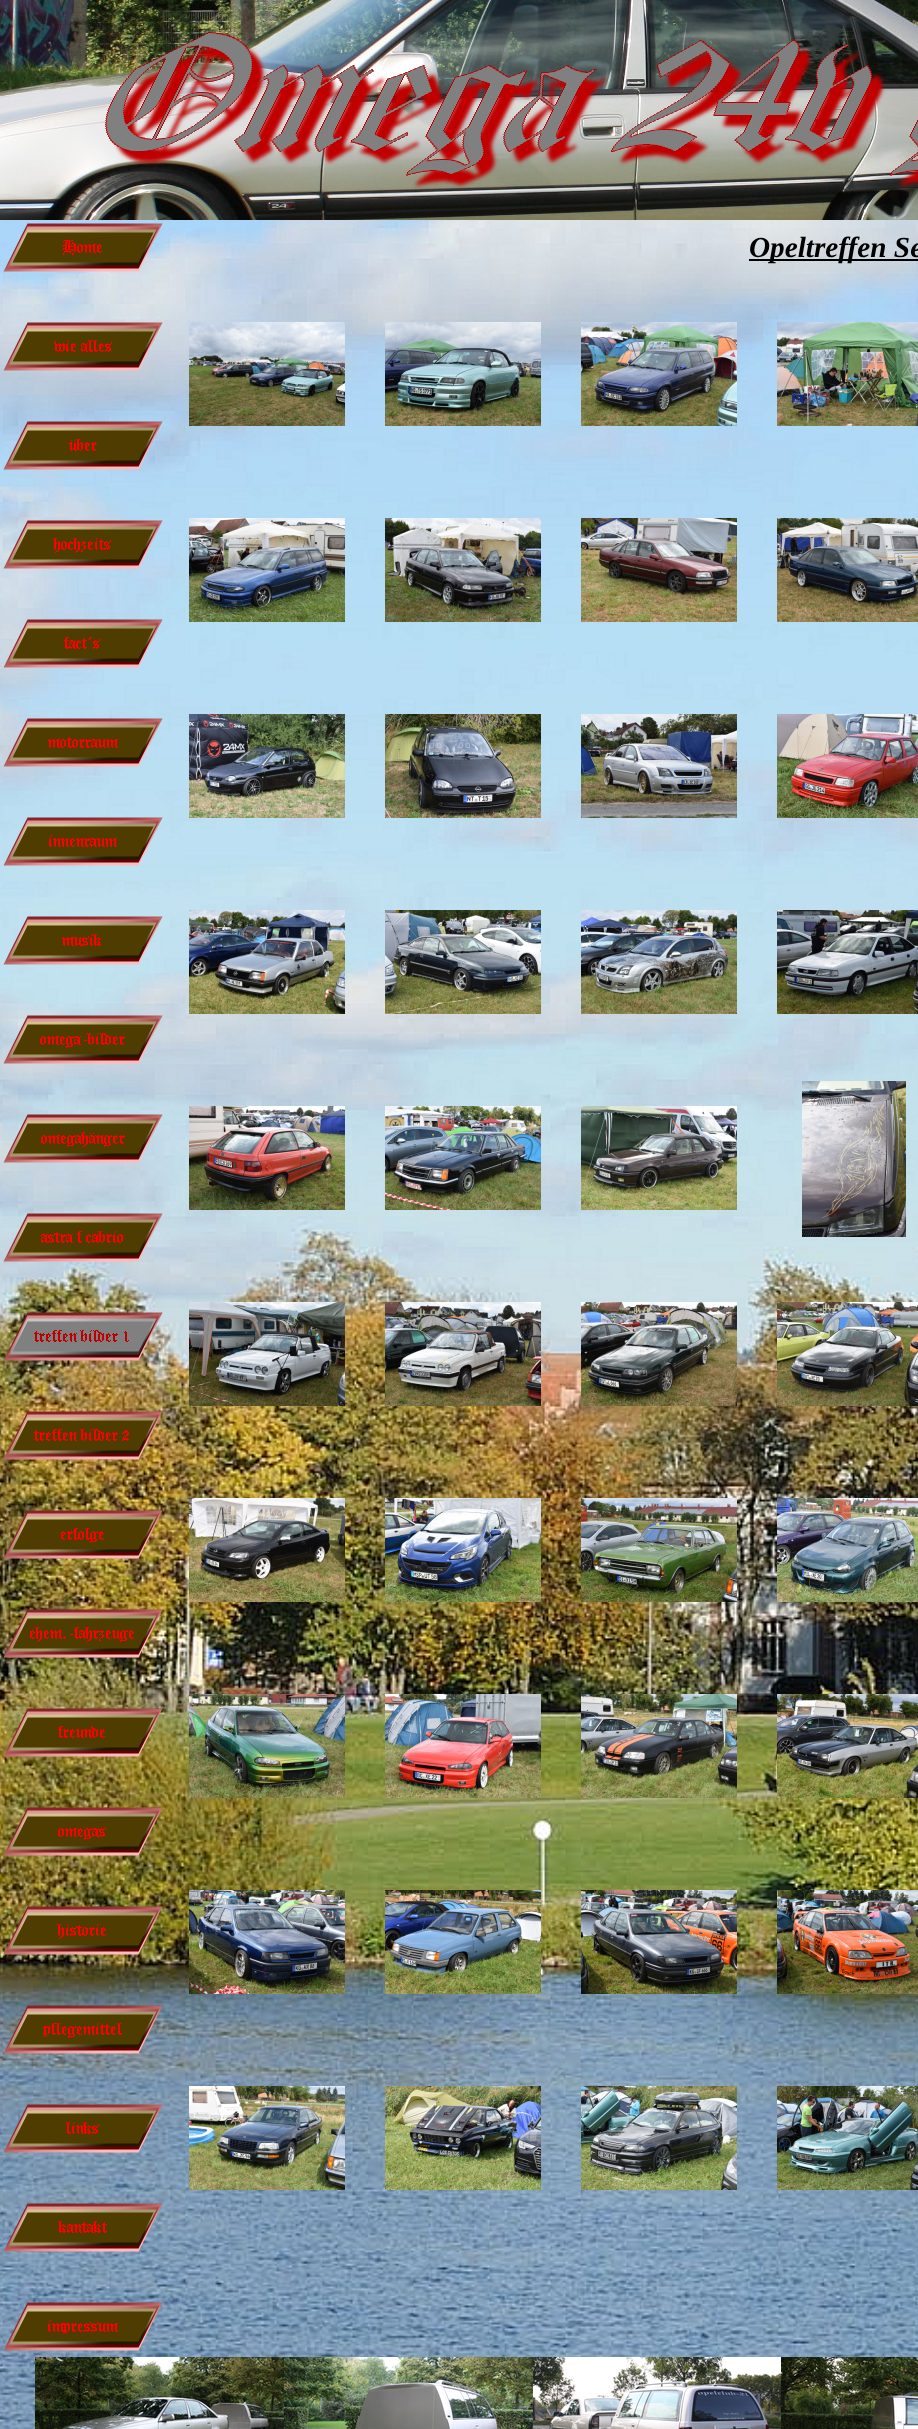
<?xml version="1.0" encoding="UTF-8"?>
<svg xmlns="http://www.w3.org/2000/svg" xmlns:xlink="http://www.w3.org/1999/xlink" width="918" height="2429">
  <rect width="100%" height="100%" fill="#ffffff" />
  <image x="0" y="220" width="918" height="2209" xlink:href="image1.png" />
  <image x="0" y="0" width="918" height="220" xlink:href="image2.png" />
  <image x="3" y="223" width="160" height="49" xlink:href="image3.png" />
  <image x="3" y="322" width="160" height="49" xlink:href="image4.png" />
  <image x="3" y="421" width="160" height="49" xlink:href="image5.png" />
  <image x="3" y="520" width="160" height="49" xlink:href="image6.png" />
  <image x="3" y="619" width="160" height="49" xlink:href="image7.png" />
  <image x="3" y="718" width="160" height="49" xlink:href="image8.png" />
  <image x="3" y="817" width="160" height="49" xlink:href="image9.png" />
  <image x="3" y="916" width="160" height="49" xlink:href="image10.png" />
  <image x="3" y="1015" width="160" height="49" xlink:href="image11.png" />
  <image x="3" y="1114" width="160" height="49" xlink:href="image12.png" />
  <image x="3" y="1213" width="160" height="49" xlink:href="image13.png" />
  <image x="3" y="1312" width="160" height="49" xlink:href="image14.png" />
  <image x="3" y="1411" width="160" height="49" xlink:href="image15.png" />
  <image x="3" y="1510" width="160" height="49" xlink:href="image16.png" />
  <image x="3" y="1609" width="160" height="49" xlink:href="image17.png" />
  <image x="3" y="1708" width="160" height="49" xlink:href="image18.png" />
  <image x="3" y="1807" width="160" height="49" xlink:href="image19.png" />
  <image x="3" y="1906" width="160" height="49" xlink:href="image20.png" />
  <image x="3" y="2005" width="160" height="49" xlink:href="image21.png" />
  <image x="3" y="2104" width="160" height="49" xlink:href="image22.png" />
  <image x="3" y="2203" width="160" height="49" xlink:href="image23.png" />
  <image x="3" y="2302" width="160" height="49" xlink:href="image24.png" />
  <rect x="749" y="259" width="169" height="2" fill="#000000" />
  <image x="189" y="322" width="156" height="104" xlink:href="image25.png" />
  <image x="385" y="322" width="156" height="104" xlink:href="image26.png" />
  <image x="581" y="322" width="156" height="104" xlink:href="image27.png" />
  <image x="777" y="322" width="141" height="104" xlink:href="image28.png" />
  <image x="189" y="518" width="156" height="104" xlink:href="image29.png" />
  <image x="385" y="518" width="156" height="104" xlink:href="image30.png" />
  <image x="581" y="518" width="156" height="104" xlink:href="image31.png" />
  <image x="777" y="518" width="141" height="104" xlink:href="image32.png" />
  <image x="189" y="714" width="156" height="104" xlink:href="image33.png" />
  <image x="385" y="714" width="156" height="104" xlink:href="image34.png" />
  <image x="581" y="714" width="156" height="104" xlink:href="image35.png" />
  <image x="777" y="714" width="141" height="104" xlink:href="image36.png" />
  <image x="189" y="910" width="156" height="104" xlink:href="image37.png" />
  <image x="385" y="910" width="156" height="104" xlink:href="image38.png" />
  <image x="581" y="910" width="156" height="104" xlink:href="image39.png" />
  <image x="777" y="910" width="141" height="104" xlink:href="image40.png" />
  <image x="189" y="1106" width="156" height="104" xlink:href="image41.png" />
  <image x="385" y="1106" width="156" height="104" xlink:href="image42.png" />
  <image x="581" y="1106" width="156" height="104" xlink:href="image43.png" />
  <image x="802" y="1081" width="104" height="156" xlink:href="image44.png" />
  <image x="189" y="1302" width="156" height="104" xlink:href="image45.png" />
  <image x="385" y="1302" width="156" height="104" xlink:href="image46.png" />
  <image x="581" y="1302" width="156" height="104" xlink:href="image47.png" />
  <image x="777" y="1302" width="141" height="104" xlink:href="image48.png" />
  <image x="189" y="1498" width="156" height="104" xlink:href="image49.png" />
  <image x="385" y="1498" width="156" height="104" xlink:href="image50.png" />
  <image x="581" y="1498" width="156" height="104" xlink:href="image51.png" />
  <image x="777" y="1498" width="141" height="104" xlink:href="image52.png" />
  <image x="189" y="1694" width="156" height="104" xlink:href="image53.png" />
  <image x="385" y="1694" width="156" height="104" xlink:href="image54.png" />
  <image x="581" y="1694" width="156" height="104" xlink:href="image55.png" />
  <image x="777" y="1694" width="141" height="104" xlink:href="image56.png" />
  <image x="189" y="1890" width="156" height="104" xlink:href="image57.png" />
  <image x="385" y="1890" width="156" height="104" xlink:href="image58.png" />
  <image x="581" y="1890" width="156" height="104" xlink:href="image59.png" />
  <image x="777" y="1890" width="141" height="104" xlink:href="image60.png" />
  <image x="189" y="2086" width="156" height="104" xlink:href="image61.png" />
  <image x="385" y="2086" width="156" height="104" xlink:href="image62.png" />
  <image x="581" y="2086" width="156" height="104" xlink:href="image63.png" />
  <image x="777" y="2086" width="141" height="104" xlink:href="image64.png" />
  <image x="35" y="2357" width="883" height="72" xlink:href="image65.png" />
  <text x="749" y="257" style="font-family: Liberation Serif; font-size: 29.25px; font-weight: bold; font-style: italic; fill: #000000">Opeltreffen Se</text>
</svg>
